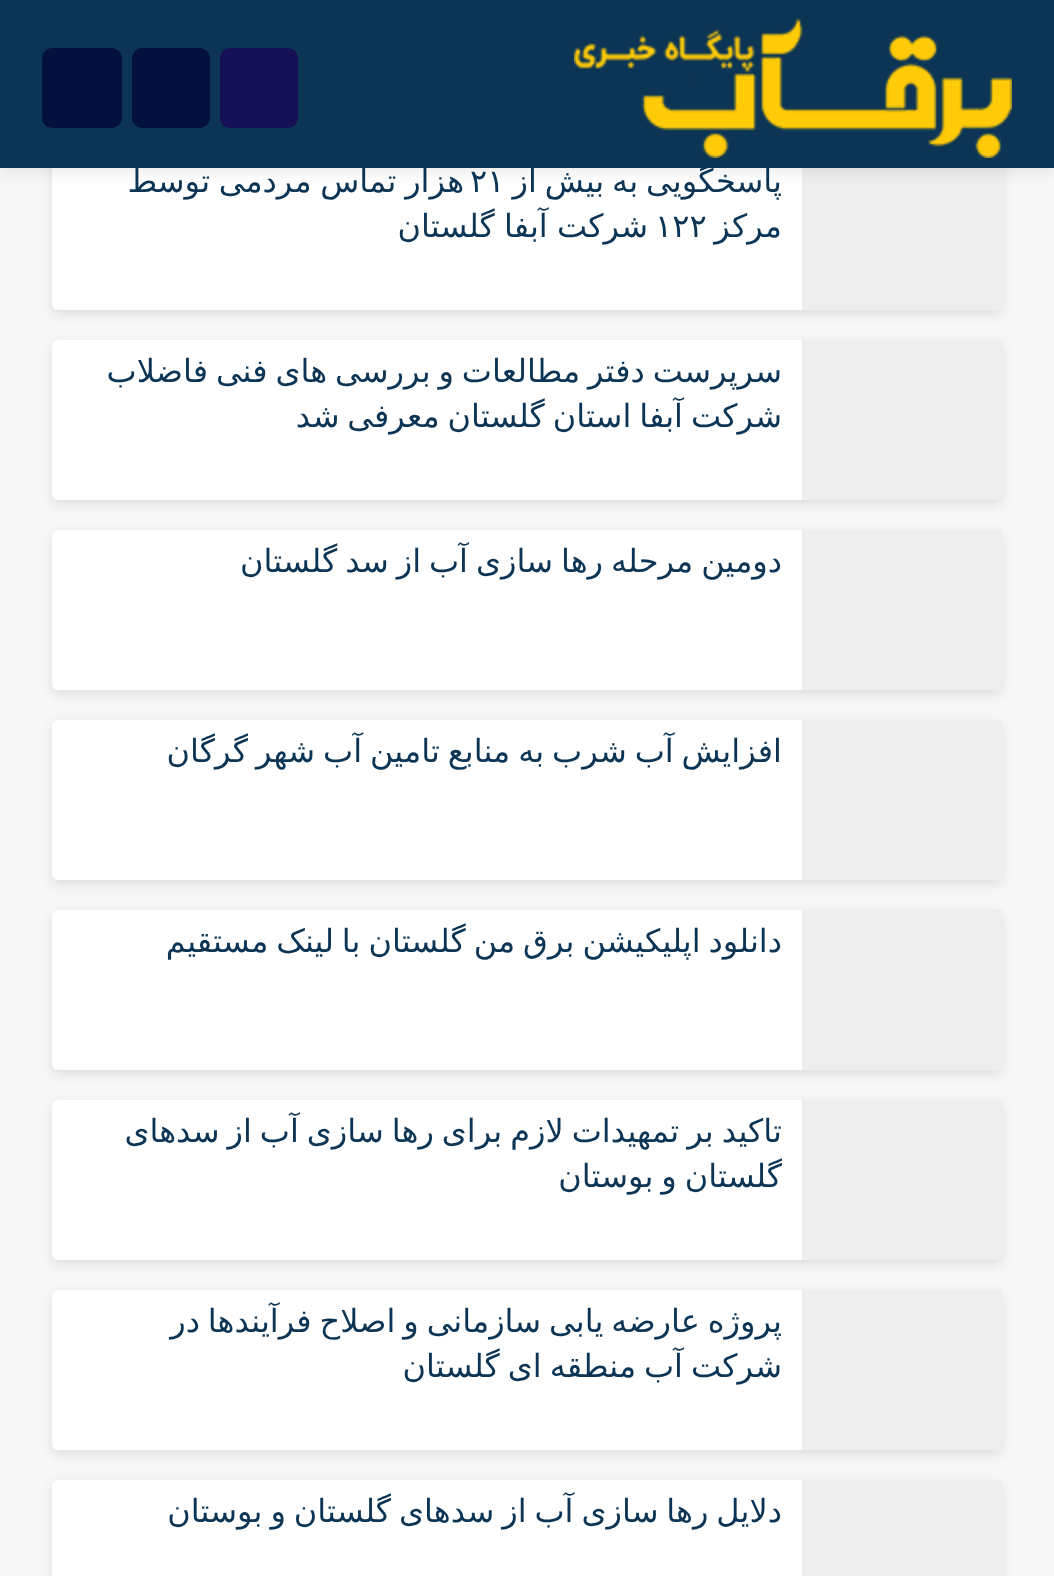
<?xml version="1.0" encoding="UTF-8"?>
<svg xmlns="http://www.w3.org/2000/svg" xmlns:xlink="http://www.w3.org/1999/xlink" width="1054" height="1576">
  <rect width="100%" height="100%" fill="#f7f7f7" />
  <rect x="52" y="154" width="950" height="160" rx="6" fill="#000000" fill-opacity="0.1" filter="blur(6px)" />
  <rect x="52" y="150" width="950" height="160" rx="6" fill="#ffffff" />
  <rect x="802" y="168" width="200" height="142" fill="#eeeeee" />
  <rect y="-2" width="1054" height="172" fill="#000000" fill-opacity="0.1" filter="blur(8px)" />
  <rect width="1054" height="168" fill="#0c3555" />
  <image x="574" y="18" width="438" height="140" xlink:href="image1.png" />
  <rect x="220" y="48" width="78" height="80" rx="10" fill="#150f55" />
  <rect x="132" y="48" width="78" height="80" rx="10" fill="#04113e" />
  <rect x="42" y="48" width="80" height="80" rx="10" fill="#04113e" />
  <rect x="52" y="344" width="950" height="160" rx="6" fill="#000000" fill-opacity="0.1" filter="blur(6px)" />
  <rect x="52" y="340" width="950" height="160" rx="6" fill="#ffffff" />
  <rect x="802" y="340" width="200" height="160" fill="#eeeeee" />
  <rect x="52" y="534" width="950" height="160" rx="6" fill="#000000" fill-opacity="0.1" filter="blur(6px)" />
  <rect x="52" y="530" width="950" height="160" rx="6" fill="#ffffff" />
  <rect x="802" y="530" width="200" height="160" fill="#eeeeee" />
  <rect x="52" y="724" width="950" height="160" rx="6" fill="#000000" fill-opacity="0.1" filter="blur(6px)" />
  <rect x="52" y="720" width="950" height="160" rx="6" fill="#ffffff" />
  <rect x="802" y="720" width="200" height="160" fill="#eeeeee" />
  <rect x="52" y="914" width="950" height="160" rx="6" fill="#000000" fill-opacity="0.1" filter="blur(6px)" />
  <rect x="52" y="910" width="950" height="160" rx="6" fill="#ffffff" />
  <rect x="802" y="910" width="200" height="160" fill="#eeeeee" />
  <rect x="52" y="1104" width="950" height="160" rx="6" fill="#000000" fill-opacity="0.1" filter="blur(6px)" />
  <rect x="52" y="1100" width="950" height="160" rx="6" fill="#ffffff" />
  <rect x="802" y="1100" width="200" height="160" fill="#eeeeee" />
  <rect x="52" y="1294" width="950" height="160" rx="6" fill="#000000" fill-opacity="0.1" filter="blur(6px)" />
  <rect x="52" y="1290" width="950" height="160" rx="6" fill="#ffffff" />
  <rect x="802" y="1290" width="200" height="160" fill="#eeeeee" />
  <rect x="52" y="1484" width="950" height="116" rx="6" fill="#000000" fill-opacity="0.1" filter="blur(6px)" />
  <rect x="52" y="1480" width="950" height="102" rx="6" fill="#ffffff" />
  <rect x="802" y="1480" width="200" height="96" fill="#eeeeee" />
  <text x="782" y="192" word-spacing="-2.25" style="font-family: DejaVu Sans; font-size: 32px; direction: rtl; fill: #0c3555">پاسخگویی به بیش از</text>
  <text x="470" y="192" style="font-family: DejaVu Sans; font-size: 32px; fill: #0c3555">۲۱</text>
  <text x="464" y="192" word-spacing="-1.5" style="font-family: DejaVu Sans; font-size: 32px; direction: rtl; fill: #0c3555">هزار تماس مردمی توسط</text>
  <text x="782" y="237" style="font-family: DejaVu Sans; font-size: 32px; direction: rtl; fill: #0c3555">مرکز</text>
  <text x="655" y="237" style="font-family: DejaVu Sans; font-size: 32px; fill: #0c3555">۱۲۲</text>
  <text x="648" y="237" word-spacing="-1" style="font-family: DejaVu Sans; font-size: 32px; direction: rtl; fill: #0c3555">شرکت آبفا گلستان</text>
  <text x="782" y="382" word-spacing="-2.25" style="font-family: DejaVu Sans; font-size: 32px; direction: rtl; fill: #0c3555">سرپرست دفتر مطالعات و بررسی های فنی فاضلاب</text>
  <text x="782" y="427" word-spacing="-2.25" style="font-family: DejaVu Sans; font-size: 32px; direction: rtl; fill: #0c3555">شرکت آبفا استان گلستان معرفی شد</text>
  <text x="782" y="572" word-spacing="-2.25" style="font-family: DejaVu Sans; font-size: 32px; direction: rtl; fill: #0c3555">دومین مرحله رها سازی آب از سد گلستان</text>
  <text x="782" y="762" word-spacing="-2.25" style="font-family: DejaVu Sans; font-size: 32px; direction: rtl; fill: #0c3555">افزایش آب شرب به منابع تامین آب شهر گرگان</text>
  <text x="782" y="952" word-spacing="-2.25" style="font-family: DejaVu Sans; font-size: 32px; direction: rtl; fill: #0c3555">دانلود اپلیکیشن برق من گلستان با لینک مستقیم</text>
  <text x="782" y="1142" word-spacing="-2.25" style="font-family: DejaVu Sans; font-size: 32px; direction: rtl; fill: #0c3555">تاکید بر تمهیدات لازم برای رها سازی آب از سدهای</text>
  <text x="782" y="1187" word-spacing="-2.25" style="font-family: DejaVu Sans; font-size: 32px; direction: rtl; fill: #0c3555">گلستان و بوستان</text>
  <text x="782" y="1332" word-spacing="-2.25" style="font-family: DejaVu Sans; font-size: 32px; direction: rtl; fill: #0c3555">پروژه عارضه یابی سازمانی و اصلاح فرآیندها در</text>
  <text x="782" y="1377" word-spacing="-2.25" style="font-family: DejaVu Sans; font-size: 32px; direction: rtl; fill: #0c3555">شرکت آب منطقه ای گلستان</text>
  <text x="782" y="1522" word-spacing="-2.25" style="font-family: DejaVu Sans; font-size: 32px; direction: rtl; fill: #0c3555">دلایل رها سازی آب از سدهای گلستان و بوستان</text>
</svg>
